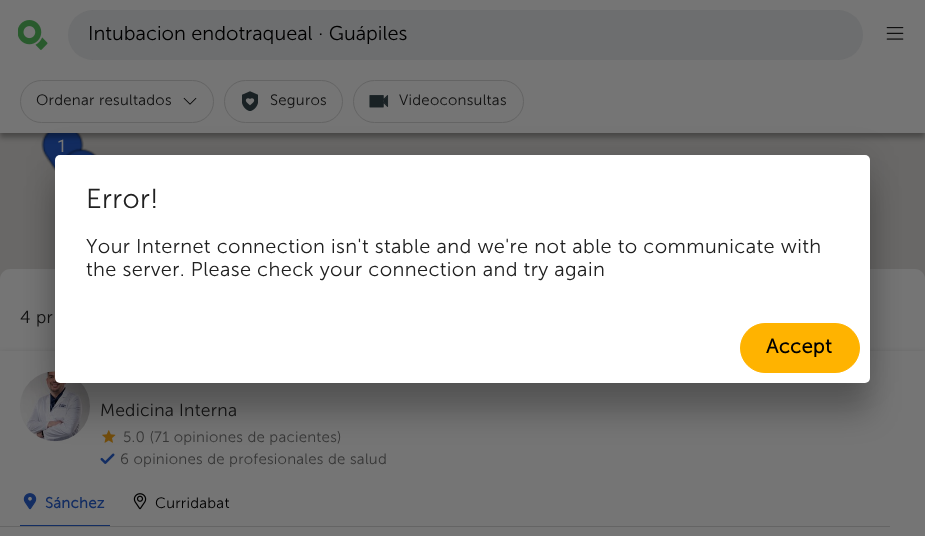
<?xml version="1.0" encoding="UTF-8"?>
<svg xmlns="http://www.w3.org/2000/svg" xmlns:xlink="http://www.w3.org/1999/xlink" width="925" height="536">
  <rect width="100%" height="100%" fill="#696867" />
  <path d="M 10 269 h 905 c 5.5 0 10 4.5 10 10 v 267 h -925 v -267 c 0 -5.5 4.5 -10 10 -10 z" fill="#757575" />
  <image x="41" y="133" width="43" height="38" xlink:href="image11.png" />
  <rect width="925" height="133" fill="#000000" fill-opacity="0.15" filter="blur(2.5px)" />
  <rect y="5" width="925" height="133" fill="#000000" fill-opacity="0.25" filter="blur(2.5px)" />
  <rect width="925" height="133" fill="#757575" />
  <image x="18" y="20" width="30" height="30" xlink:href="image1.png" />
  <rect x="68" y="10" width="795" height="50" rx="25" fill="#6d6e6f" />
  <image x="886" y="27" width="18" height="13" xlink:href="image2.png" />
  <rect x="20.5" y="80.5" width="193" height="42" rx="21" fill="none" stroke="#646464" />
  <image x="183" y="97" width="14" height="8" xlink:href="image3.png" />
  <rect x="224.5" y="80.5" width="118" height="42" rx="21" fill="none" stroke="#646464" />
  <image x="242" y="91" width="16" height="20" xlink:href="image4.png" />
  <rect x="353.5" y="80.5" width="170" height="42" rx="21" fill="none" stroke="#646464" />
  <image x="369" y="95" width="20" height="13" xlink:href="image5.png" />
  <rect y="354" width="925" height="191" fill="#000000" fill-opacity="0.26" filter="blur(3px)" />
  <rect y="351" width="925" height="185" fill="#757575" />
  <image x="20" y="371" width="70" height="71" xlink:href="image6.png" />
  <image x="102" y="430" width="14" height="13" xlink:href="image7.png" />
  <image x="100" y="453" width="15" height="11" xlink:href="image8.png" />
  <image x="23" y="493" width="14" height="17" xlink:href="image9.png" />
  <image x="133" y="493" width="14" height="17" xlink:href="image10.png" />
  <rect x="20" y="525" width="90" height="1" fill="#132d62" />
  <rect y="526" width="890" height="1" fill="#646464" />
  <image x="66" y="148" width="31" height="7" xlink:href="image12.png" />
  <rect x="55" y="185" width="815" height="228" rx="5" fill="#000000" fill-opacity="0.24" filter="blur(15px)" />
  <rect x="55" y="155" width="815" height="228" rx="5" fill="#000000" fill-opacity="0.12" filter="blur(15px)" />
  <rect x="55" y="155" width="815" height="228" rx="5" fill="#ffffff" />
  <rect x="740.5" y="323.5" width="119" height="49" rx="24.5" fill="#ffb300" stroke="#ffb300" />
  <text x="88" y="40" style="font-family: 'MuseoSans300'; font-size: 20px; fill: #000000">Intubacion endotraqueal · Guápiles</text>
  <text x="36" y="105" style="font-family: 'MuseoSans300'; font-size: 15px; letter-spacing: 0.25px; fill: #0f0f0f">Ordenar resultados</text>
  <text x="270" y="105" style="font-family: 'MuseoSans300'; font-size: 15px; letter-spacing: 0.25px; fill: #0f0f0f">Seguros</text>
  <text x="399" y="105" style="font-family: 'MuseoSans300'; font-size: 15px; letter-spacing: 0.25px; fill: #0f0f0f">Videoconsultas</text>
  <text x="20" y="323" style="font-family: 'MuseoSans300'; font-size: 17.5px; letter-spacing: 0.38px; fill: #0f0f0f">4 pr</text>
  <text x="100" y="416" style="font-family: 'MuseoSans300'; font-size: 17.5px; letter-spacing: 0.25px; fill: #0f0f0f">Medicina Interna</text>
  <text x="123" y="442" style="font-family: 'MuseoSans300'; font-size: 15px; letter-spacing: 0.25px; fill: #363636">5.0 (71 opiniones de pacientes)</text>
  <text x="120" y="464" style="font-family: 'MuseoSans300'; font-size: 15px; letter-spacing: 0.25px; fill: #363636">6 opiniones de profesionales de salud</text>
  <text x="45" y="508" style="font-family: 'MuseoSans300'; font-size: 15px; font-weight: bold; letter-spacing: 0.25px; fill: #132d62">Sánchez</text>
  <text x="155" y="508" style="font-family: 'MuseoSans300'; font-size: 15px; letter-spacing: 0.25px; fill: #000000">Curridabat</text>
  <text x="57" y="152" style="font-family: Roboto; font-size: 17.5px; letter-spacing: 0.38px; fill: #757575">1</text>
  <text x="86" y="208" style="font-family: 'MuseoSans300'; font-size: 27.5px; letter-spacing: 0.38px; fill: #212121">Error!</text>
  <text x="86" y="253" style="font-family: 'MuseoSans300'; font-size: 20px; letter-spacing: 0.38px; fill: #212121">Your Internet connection isn't stable and we're not able to communicate with</text>
  <text x="86" y="276" style="font-family: 'MuseoSans300'; font-size: 20px; letter-spacing: 0.38px; fill: #212121">the server. Please check your connection and try again</text>
  <text x="766" y="353" style="font-family: 'MuseoSans300'; font-size: 20px; font-weight: bold; letter-spacing: 0.38px; fill: #000000">Accept</text>
</svg>
